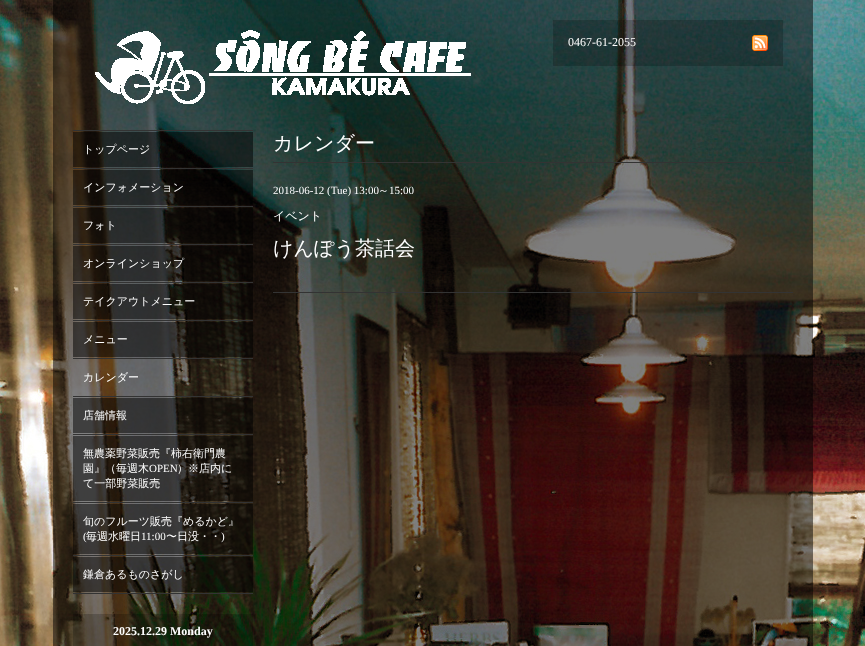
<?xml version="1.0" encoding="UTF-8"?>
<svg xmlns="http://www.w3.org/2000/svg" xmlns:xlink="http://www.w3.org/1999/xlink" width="865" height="646">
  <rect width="100%" height="100%" fill="#ffffff" />
  <image x="0" y="0" width="865" height="646" xlink:href="image1.png" />
  <rect x="53" width="760" height="646" fill="#000000" fill-opacity="0.5" />
  <image x="95" y="30" width="376" height="74" xlink:href="image2.png" />
  <rect x="553" y="20" width="230" height="46" fill="#000000" fill-opacity="0.2" />
  <image x="752" y="35" width="16" height="16" xlink:href="image3.png" />
  <rect x="73" y="130" width="180" height="1" fill="#333333" />
  <rect x="73" y="168" width="180" height="1" fill="#333333" />
  <rect x="73" y="132" width="180" height="35" fill="#000000" fill-opacity="0.5" />
  <rect x="73" y="206" width="180" height="1" fill="#333333" />
  <rect x="73" y="170" width="180" height="35" fill="#000000" fill-opacity="0.5" />
  <rect x="73" y="244" width="180" height="1" fill="#333333" />
  <rect x="73" y="208" width="180" height="35" fill="#000000" fill-opacity="0.5" />
  <rect x="73" y="282" width="180" height="1" fill="#333333" />
  <rect x="73" y="246" width="180" height="35" fill="#000000" fill-opacity="0.5" />
  <rect x="73" y="320" width="180" height="1" fill="#333333" />
  <rect x="73" y="284" width="180" height="35" fill="#000000" fill-opacity="0.5" />
  <rect x="73" y="358" width="180" height="1" fill="#333333" />
  <rect x="73" y="322" width="180" height="35" fill="#000000" fill-opacity="0.5" />
  <rect x="73" y="396" width="180" height="1" fill="#333333" />
  <rect x="73" y="434" width="180" height="1" fill="#333333" />
  <rect x="73" y="398" width="180" height="35" fill="#000000" fill-opacity="0.5" />
  <rect x="73" y="502" width="180" height="1" fill="#333333" />
  <rect x="73" y="436" width="180" height="65" fill="#000000" fill-opacity="0.5" />
  <rect x="73" y="555" width="180" height="1" fill="#333333" />
  <rect x="73" y="504" width="180" height="50" fill="#000000" fill-opacity="0.5" />
  <rect x="73" y="593" width="180" height="1" fill="#333333" />
  <rect x="73" y="557" width="180" height="35" fill="#000000" fill-opacity="0.5" />
  <rect x="273" y="162" width="520" height="1" fill="#333333" />
  <rect x="273" y="292" width="520" height="1" fill="#333333" />
  <rect x="73" y="614" width="180" height="32" fill="#000000" fill-opacity="0.2" />
  <text x="568" y="46" style="font-family: Liberation Serif; font-size: 12px; fill: #ffffff">0467-61-2055</text>
  <text x="83" y="153" style="font-family: WenQuanYi Zen Hei; font-size: 11px; font-weight: 500; fill: #ffffff">トップページ</text>
  <text x="83" y="191" style="font-family: WenQuanYi Zen Hei; font-size: 11px; font-weight: 500; fill: #ffffff">インフォメーション</text>
  <text x="83" y="229" style="font-family: WenQuanYi Zen Hei; font-size: 11px; font-weight: 500; fill: #ffffff">フォト</text>
  <text x="83" y="267" style="font-family: WenQuanYi Zen Hei; font-size: 11px; font-weight: 500; fill: #ffffff">オンラインショップ</text>
  <text x="83" y="305" style="font-family: WenQuanYi Zen Hei; font-size: 11px; font-weight: 500; fill: #ffffff">テイクアウトメニュー</text>
  <text x="83" y="343" style="font-family: WenQuanYi Zen Hei; font-size: 11px; font-weight: 500; fill: #ffffff">メニュー</text>
  <text x="83" y="381" style="font-family: WenQuanYi Zen Hei; font-size: 11px; font-weight: 500; fill: #ffffff">カレンダー</text>
  <text x="83" y="419" style="font-family: WenQuanYi Zen Hei; font-size: 11px; font-weight: 500; fill: #ffffff">店舗情報</text>
  <text x="83" y="457" style="font-family: WenQuanYi Zen Hei; font-size: 11px; font-weight: 500; fill: #ffffff">無農薬野菜販売『柿右衛門農</text>
  <text x="83" y="472" style="font-family: WenQuanYi Zen Hei; font-size: 11px; font-weight: 500; fill: #ffffff">園』（毎週木</text>
  <text x="149" y="472" style="font-family: Liberation Serif; font-size: 11px; fill: #ffffff">OPEN</text>
  <text x="177" y="472" style="font-family: WenQuanYi Zen Hei; font-size: 11px; font-weight: 500; fill: #ffffff">）※店内に</text>
  <text x="83" y="487" style="font-family: WenQuanYi Zen Hei; font-size: 11px; font-weight: 500; fill: #ffffff">て一部野菜販売</text>
  <text x="83" y="525" style="font-family: WenQuanYi Zen Hei; font-size: 11px; font-weight: 500; fill: #ffffff">旬のフルーツ販売『めるかど』</text>
  <text x="83" y="540" style="font-family: Liberation Serif; font-size: 11px; fill: #ffffff">(</text>
  <text x="86" y="540" style="font-family: WenQuanYi Zen Hei; font-size: 11px; font-weight: 500; fill: #ffffff">毎週水曜日</text>
  <text x="141" y="540" style="font-family: Liberation Serif; font-size: 11px; fill: #ffffff">11:00</text>
  <text x="166" y="540" style="font-family: WenQuanYi Zen Hei; font-size: 11px; font-weight: 500; fill: #ffffff">〜日没・・</text>
  <text x="221" y="540" style="font-family: Liberation Serif; font-size: 11px; fill: #ffffff">)</text>
  <text x="83" y="578" style="font-family: WenQuanYi Zen Hei; font-size: 11px; font-weight: 500; fill: #ffffff">鎌倉あるものさがし</text>
  <text x="273" y="150" style="font-family: WenQuanYi Zen Hei; font-size: 20px; font-weight: 500; fill: #ffffff">カレンダー</text>
  <text x="273" y="194" style="font-family: Liberation Serif; font-size: 11px; fill: #ffffff">2018-06-12 (Tue) 13:00</text>
  <text x="378" y="194" style="font-family: WenQuanYi Zen Hei; font-size: 11px; font-weight: 500; fill: #ffffff">～</text>
  <text x="389" y="194" style="font-family: Liberation Serif; font-size: 11px; fill: #ffffff">15:00</text>
  <text x="273" y="220" style="font-family: WenQuanYi Zen Hei; font-size: 12px; font-weight: 500; fill: #ffffff">イベント</text>
  <text x="273" y="255" style="font-family: WenQuanYi Zen Hei; font-size: 20px; font-weight: 500; fill: #ffffff">けんぽう茶話会</text>
  <text x="113" y="635" style="font-family: Liberation Serif; font-size: 12px; font-weight: bold; fill: #ffffff">2025.12.29 Monday</text>
</svg>
